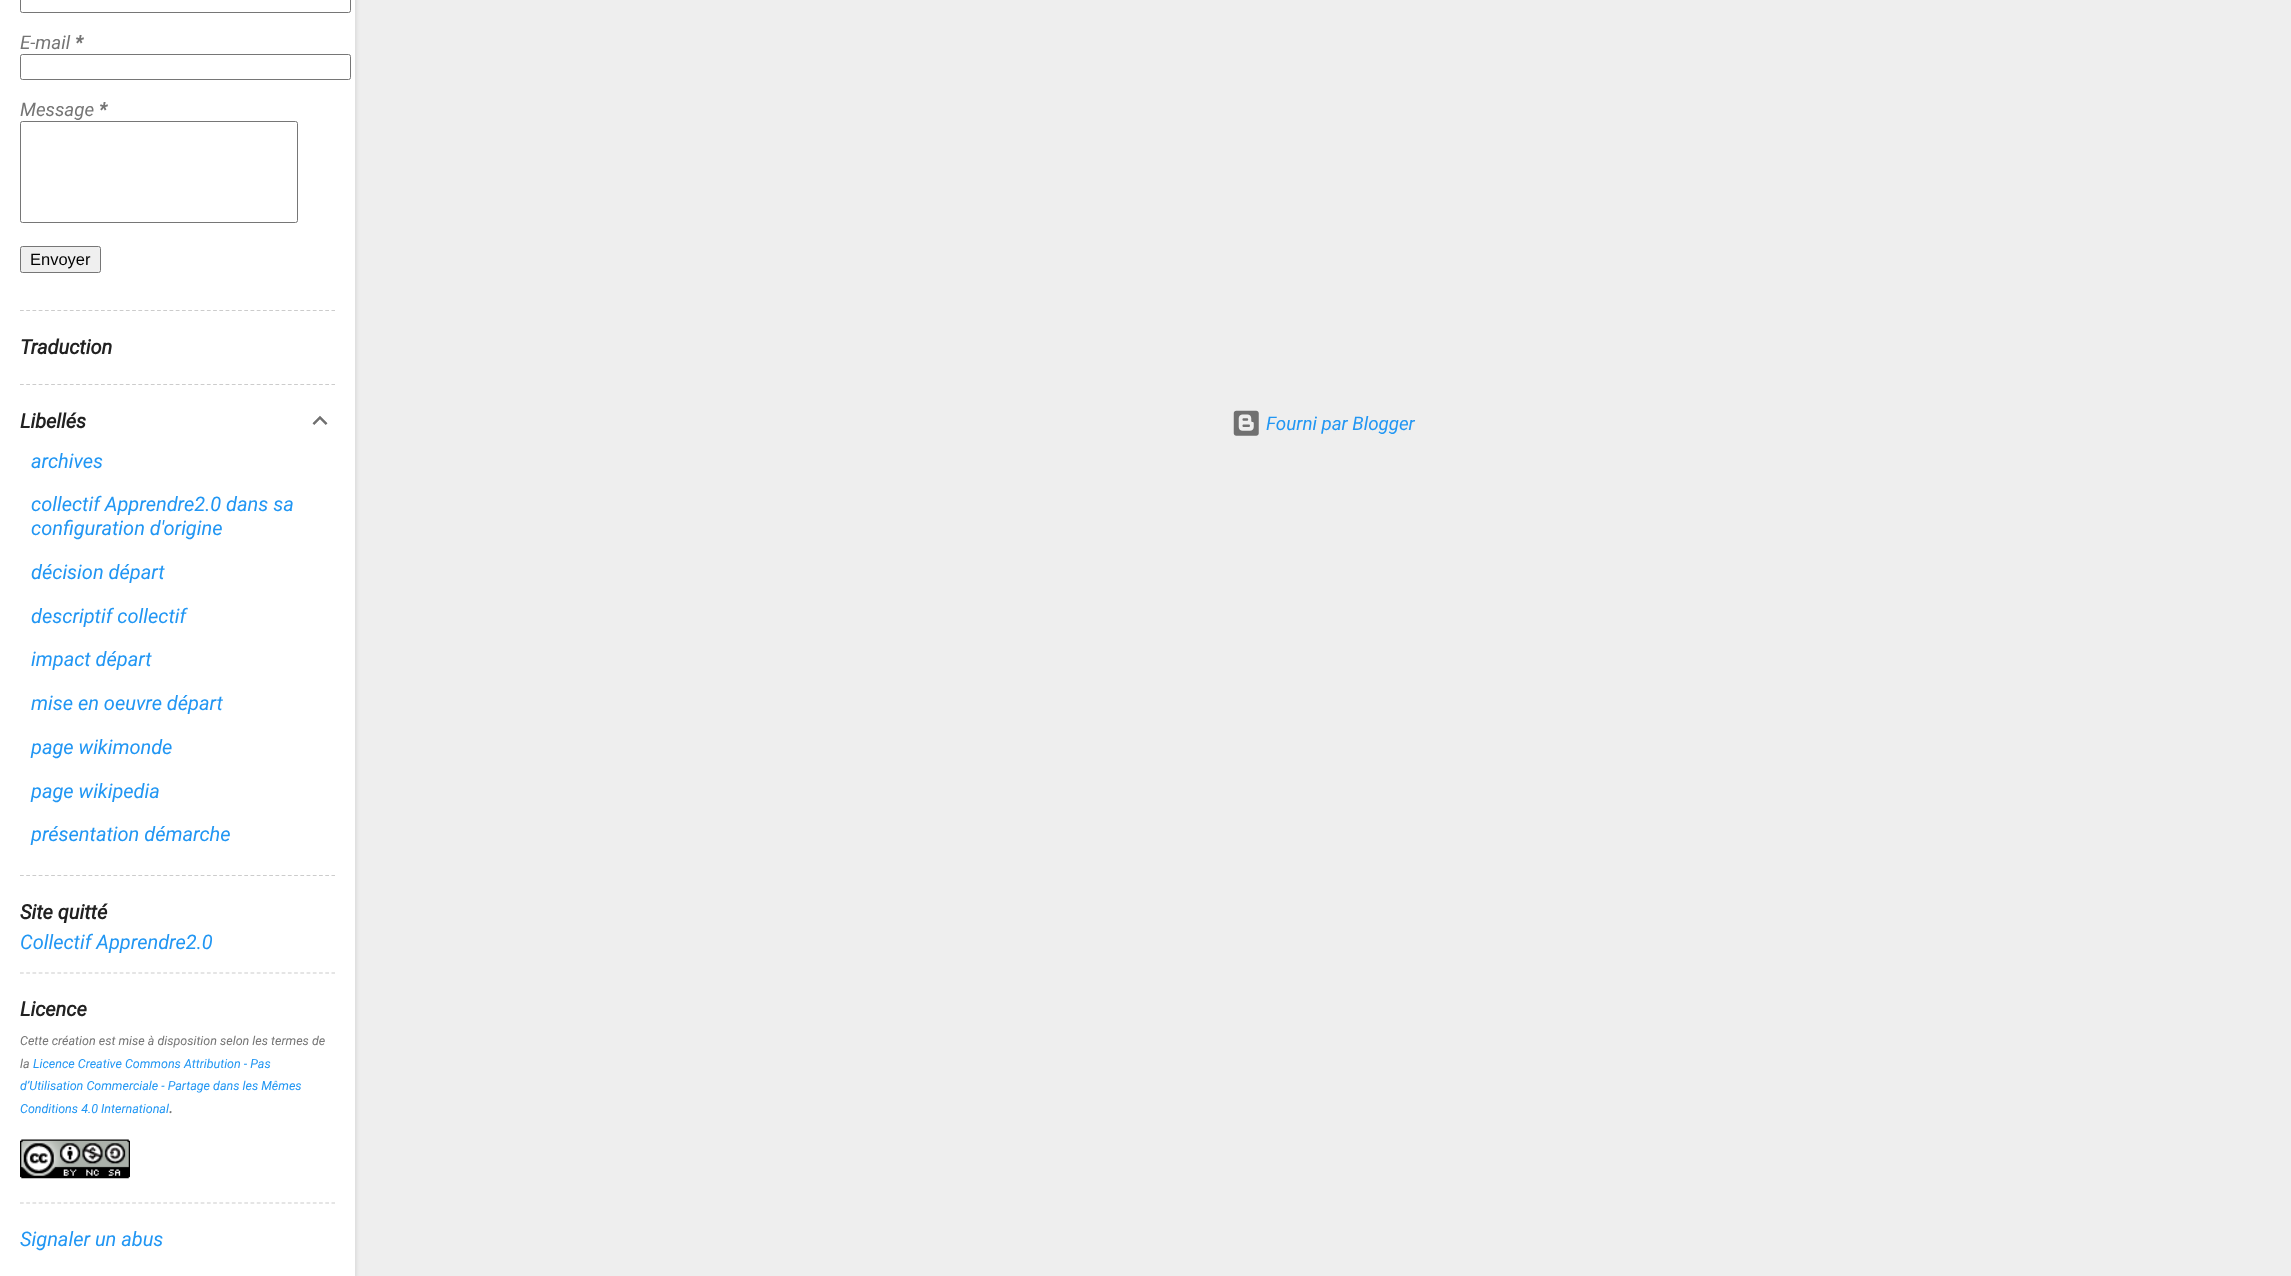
<?xml version="1.0" encoding="UTF-8"?>
<svg xmlns="http://www.w3.org/2000/svg" xmlns:xlink="http://www.w3.org/1999/xlink" width="2291" height="1276">
  <rect width="100%" height="100%" fill="#eeeeee" />
  <rect x="1" y="-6" width="355" height="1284" fill="#000000" fill-opacity="0.1" filter="blur(2px)" />
  <rect width="355" height="1276" fill="#ffffff" />
  <rect x="20.5" y="-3.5" width="330" height="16" rx="2" fill="none" stroke="#767676" />
  <rect x="20.5" y="54.5" width="330" height="25" rx="2" fill="none" stroke="#767676" />
  <rect x="20.5" y="121.5" width="277" height="101" rx="2" fill="none" stroke="#767676" />
  <rect x="20.5" y="246.5" width="80" height="26" rx="2" fill="#efefef" stroke="#767676" />
  <path d="M 20 310.5 h 315" fill="none" stroke="#cccccc" stroke-width="1.2" stroke-dasharray="3.75 2.48" />
  <path d="M 20 384.5 h 315" fill="none" stroke="#cccccc" stroke-width="1.2" stroke-dasharray="3.75 2.48" />
  <image x="312" y="415" width="16" height="10" xlink:href="image1.png" />
  <path d="M 20 875.5 h 315" fill="none" stroke="#cccccc" stroke-width="1.2" stroke-dasharray="3.75 2.48" />
  <path d="M 20 973 h 315" fill="none" stroke="#cccccc" stroke-width="1.2" stroke-dasharray="3.75 2.48" />
  <image x="20" y="1139" width="110" height="40" xlink:href="image2.png" />
  <path d="M 20 1203 h 315" fill="none" stroke="#cccccc" stroke-width="1.2" stroke-dasharray="3.75 2.48" />
  <image x="1233" y="410" width="26" height="26" xlink:href="image3.png" />
  <text x="20" y="49" style="font-family: Roboto; font-size: 18.75px; font-style: italic; fill: #757575">E-mail</text>
  <text x="75" y="49" style="font-family: Roboto; font-size: 18.75px; font-weight: bold; font-style: italic; fill: #757575">*</text>
  <text x="20" y="116" style="font-family: Roboto; font-size: 18.75px; font-style: italic; fill: #757575">Message</text>
  <text x="99" y="116" style="font-family: Roboto; font-size: 18.75px; font-weight: bold; font-style: italic; fill: #757575">*</text>
  <text x="30" y="265" style="font-family: Liberation Sans; font-size: 16.5px; fill: #000000">Envoyer</text>
  <text x="20" y="354" style="font-family: Roboto; font-size: 20px; font-weight: bold; font-style: italic; fill: #212121">Traduction</text>
  <text x="20" y="428" style="font-family: Roboto; font-size: 20px; font-weight: bold; font-style: italic; fill: #212121">Libellés</text>
  <text x="31" y="468" style="font-family: Roboto; font-size: 20px; font-style: italic; fill: #2196f3">archives</text>
  <text x="31" y="511" style="font-family: Roboto; font-size: 20px; font-style: italic; fill: #2196f3">collectif Apprendre2.0 dans sa</text>
  <text x="31" y="535" style="font-family: Roboto; font-size: 20px; font-style: italic; fill: #2196f3">configuration d'origine</text>
  <text x="31" y="579" style="font-family: Roboto; font-size: 20px; font-style: italic; fill: #2196f3">décision départ</text>
  <text x="31" y="623" style="font-family: Roboto; font-size: 20px; font-style: italic; fill: #2196f3">descriptif collectif</text>
  <text x="31" y="666" style="font-family: Roboto; font-size: 20px; font-style: italic; fill: #2196f3">impact départ</text>
  <text x="31" y="710" style="font-family: Roboto; font-size: 20px; font-style: italic; fill: #2196f3">mise en oeuvre départ</text>
  <text x="31" y="754" style="font-family: Roboto; font-size: 20px; font-style: italic; fill: #2196f3">page wikimonde</text>
  <text x="31" y="798" style="font-family: Roboto; font-size: 20px; font-style: italic; fill: #2196f3">page wikipedia</text>
  <text x="31" y="841" style="font-family: Roboto; font-size: 20px; font-style: italic; fill: #2196f3">présentation démarche</text>
  <text x="20" y="919" style="font-family: Roboto; font-size: 20px; font-weight: bold; font-style: italic; fill: #212121">Site quitté</text>
  <text x="20" y="949" style="font-family: Roboto; font-size: 20px; font-style: italic; fill: #2196f3">Collectif Apprendre2.0</text>
  <text x="20" y="1016" style="font-family: Roboto; font-size: 20px; font-weight: bold; font-style: italic; fill: #212121">Licence</text>
  <text x="20" y="1045" style="font-family: Roboto; font-size: 12.5px; font-style: italic; fill: #757575">Cette création est mise à disposition selon les termes de</text>
  <text x="20" y="1068" style="font-family: Roboto; font-size: 12.5px; font-style: italic; fill: #757575">la</text>
  <text x="33" y="1068" style="font-family: Roboto; font-size: 12.5px; font-style: italic; fill: #2196f3">Licence Creative Commons Attribution - Pas</text>
  <text x="20" y="1090" style="font-family: Roboto; font-size: 12.5px; font-style: italic; fill: #2196f3">d’Utilisation Commerciale - Partage dans les Mêmes</text>
  <text x="20" y="1113" style="font-family: Roboto; font-size: 12.5px; font-style: italic; fill: #2196f3">Conditions 4.0 International</text>
  <text x="169" y="1113" style="font-family: Roboto; font-size: 18.75px; font-style: italic; fill: #757575">.</text>
  <text x="20" y="1246" style="font-family: Roboto; font-size: 20px; font-style: italic; fill: #2196f3">Signaler un abus</text>
  <text x="1266" y="430" style="font-family: Roboto; font-size: 18.75px; font-style: italic; fill: #2196f3">Fourni par Blogger</text>
</svg>
